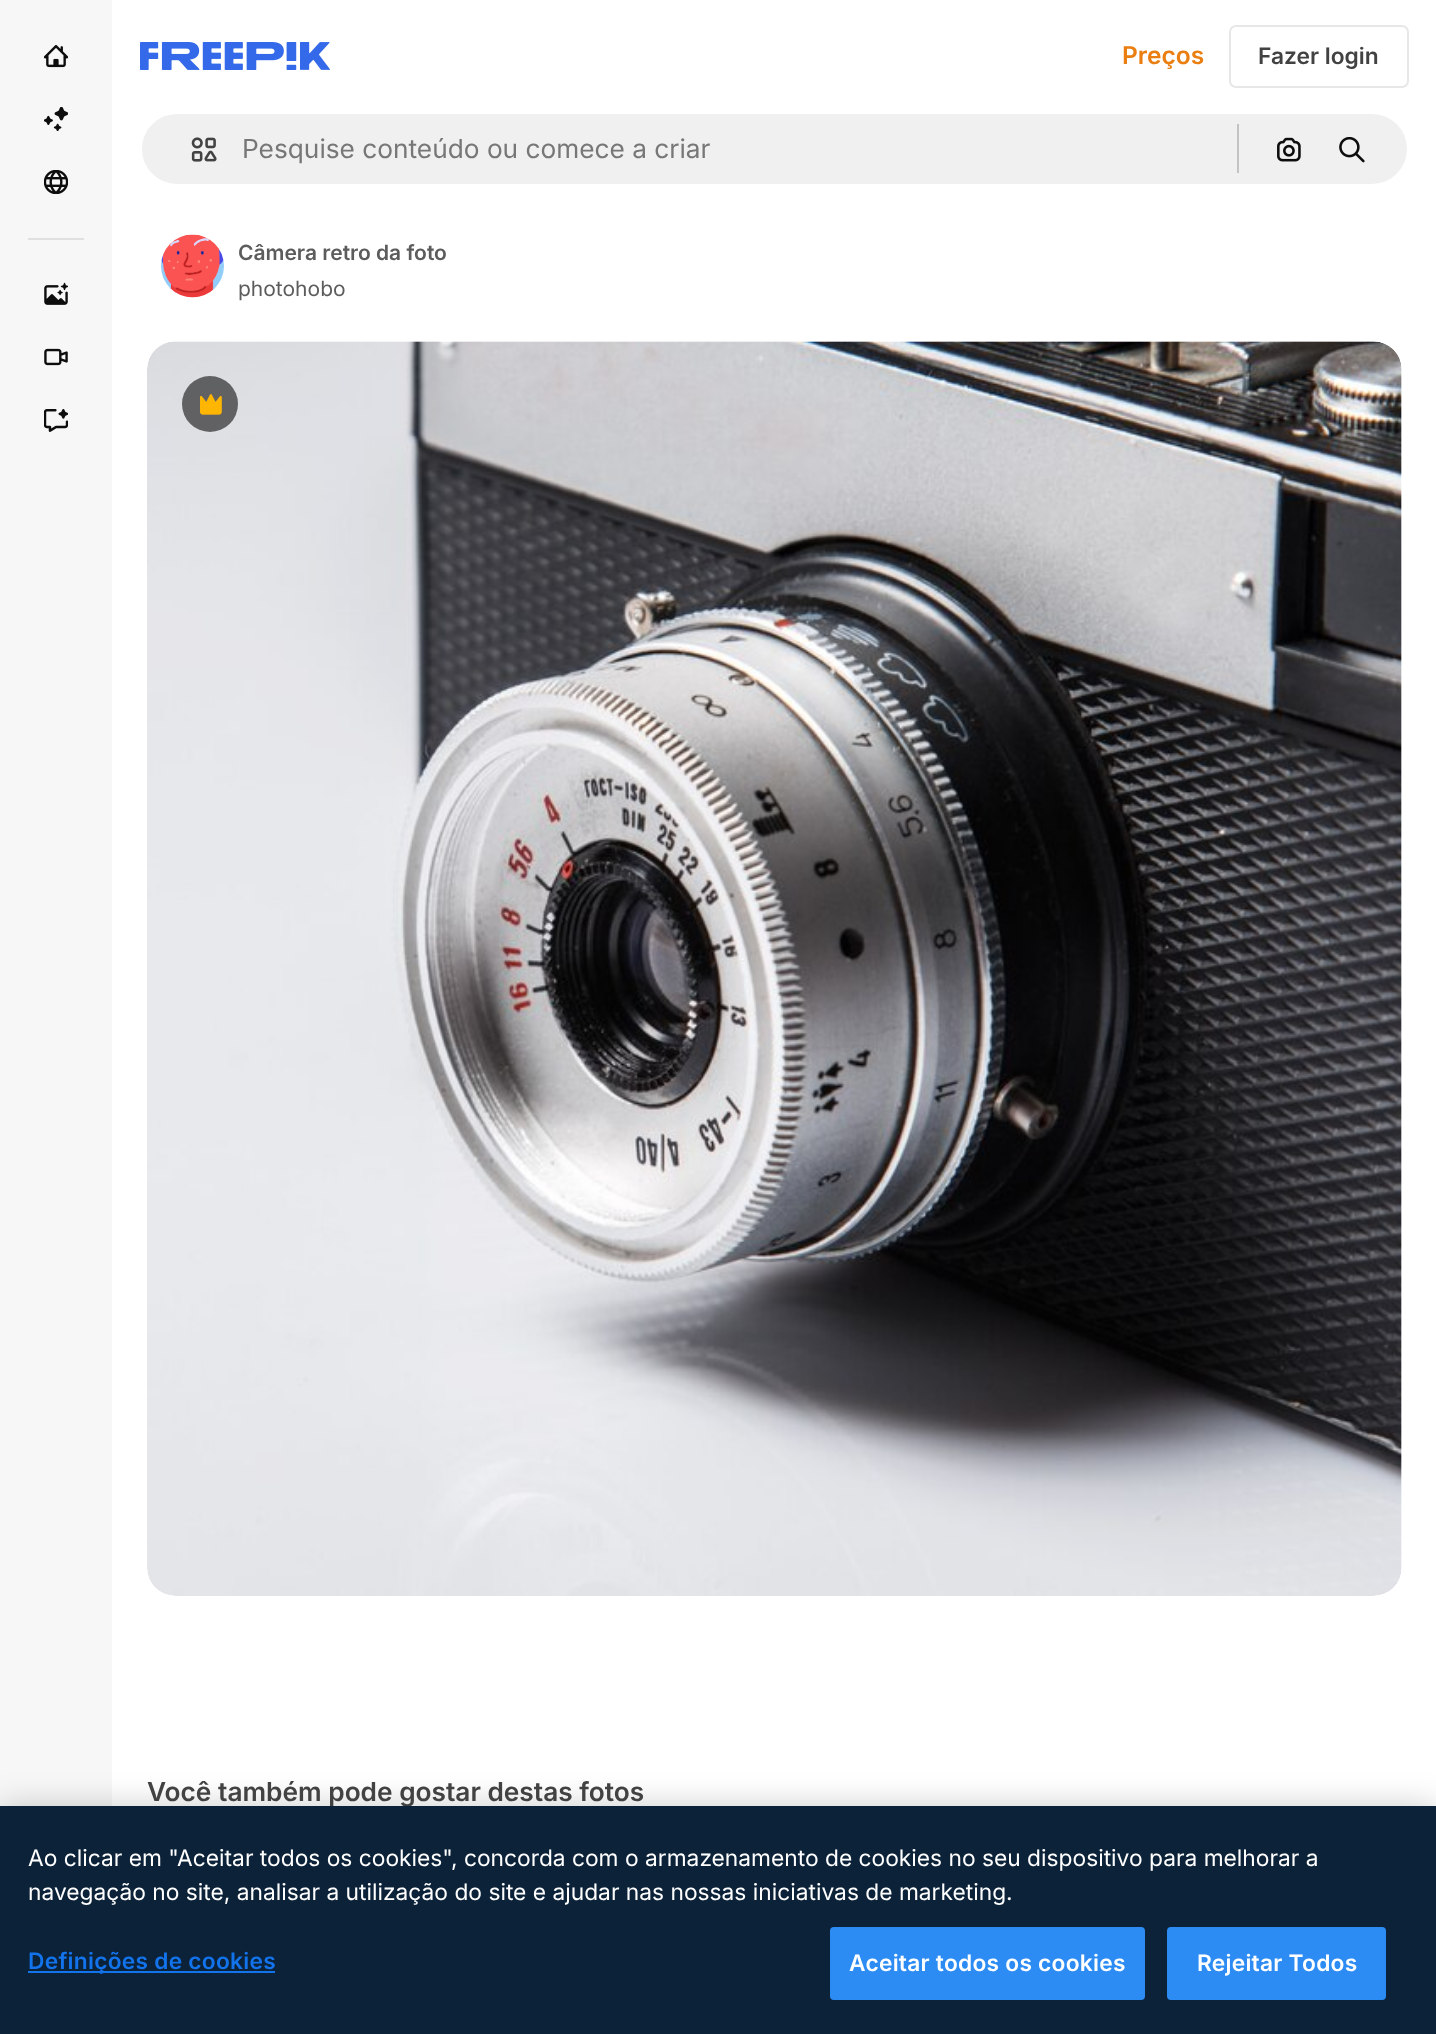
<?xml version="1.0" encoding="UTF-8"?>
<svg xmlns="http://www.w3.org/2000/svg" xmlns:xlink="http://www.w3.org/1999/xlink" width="1436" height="2034">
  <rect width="100%" height="100%" fill="#ffffff" />
  <rect width="112" height="1806" fill="#f7f7f7" />
  <image x="44" y="45" width="24" height="23" xlink:href="image1.png" />
  <image x="44" y="107" width="24" height="24" xlink:href="image2.png" />
  <image x="44" y="170" width="24" height="24" xlink:href="image3.png" />
  <rect x="28" y="238" width="56" height="2" fill="#e0e0e0" />
  <image x="44" y="282" width="24" height="23" xlink:href="image4.png" />
  <image x="44" y="348" width="24" height="18" xlink:href="image5.png" />
  <image x="44" y="409" width="24" height="23" xlink:href="image6.png" />
  <image x="140" y="42" width="190" height="28" xlink:href="image7.png" />
  <rect x="1230" y="26" width="178" height="61" rx="6" fill="none" stroke="#e7e7e7" stroke-width="2" />
  <rect x="141" y="113" width="1267" height="72" rx="36" fill="#f0f0f0" stroke="#ffffff" stroke-width="2" />
  <image x="191" y="137" width="26" height="25" xlink:href="image8.png" />
  <rect x="1237" y="124" width="2" height="49" fill="#c3c3c3" />
  <image x="1277" y="137" width="24" height="25" xlink:href="image9.png" />
  <image x="1339" y="137" width="26" height="26" xlink:href="image10.png" />
  <image x="161" y="234" width="63" height="64" xlink:href="image11.png" />
  <image x="147" y="341" width="1255" height="1255" xlink:href="image12.png" />
  <circle cx="210" cy="404" r="28" fill="#0d0d0d" fill-opacity="0.6" />
  <image x="200" y="394" width="22" height="21" xlink:href="image13.png" />
  <rect y="1806" width="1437" height="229" fill="#000000" fill-opacity="0.2" filter="blur(16px)" />
  <text x="1122" y="64" style="font-family: Inter; font-size: 24.5px; font-weight: 600; fill: #ea7e11">Preços</text>
  <text x="1258" y="64" style="font-family: Inter; font-size: 22.75px; font-weight: 600; fill: #424242">Fazer login</text>
  <text x="242" y="158" style="font-family: Inter; font-size: 26.25px; fill: #777777">Pesquise conteúdo ou comece a criar</text>
  <text x="238" y="260" style="font-family: Inter; font-size: 21px; font-weight: 600; fill: #5c5c5c">Câmera retro da foto</text>
  <text x="238" y="296" style="font-family: Inter; font-size: 21px; fill: #5c5c5c">photohobo</text>
  <text x="147" y="1801" style="font-family: Inter; font-size: 26.25px; font-weight: 600; fill: #424242">Você também pode gostar destas fotos</text>
  <rect y="1806" width="1436" height="228" fill="#0b2239" />
  <text x="28" y="1866" style="font-family: Inter; font-size: 22.75px; fill: #ffffff">Ao clicar em "Aceitar todos os cookies", concorda com o armazenamento de cookies no seu dispositivo para melhorar a</text>
  <text x="28" y="1900" style="font-family: Inter; font-size: 22.75px; fill: #ffffff">navegação no site, analisar a utilização do site e ajudar nas nossas iniciativas de marketing.</text>
  <rect x="28" y="1971" width="247" height="2" fill="#1273eb" />
  <text x="28" y="1969" style="font-family: Inter; font-size: 22.75px; font-weight: 600; letter-spacing: 0.25px; fill: #1273eb">Definições de cookies</text>
  <rect x="831" y="1928" width="313" height="71" rx="3" fill="#2c8cf4" stroke="#2c8cf4" stroke-width="2" />
  <text x="849" y="1971" style="font-family: Inter; font-size: 22.75px; font-weight: 600; letter-spacing: 0.25px; fill: #ffffff">Aceitar todos os cookies</text>
  <rect x="1168" y="1928" width="217" height="71" rx="3" fill="#2c8cf4" stroke="#2c8cf4" stroke-width="2" />
  <text x="1197" y="1971" style="font-family: Inter; font-size: 22.75px; font-weight: 600; letter-spacing: 0.25px; fill: #ffffff">Rejeitar Todos</text>
</svg>
